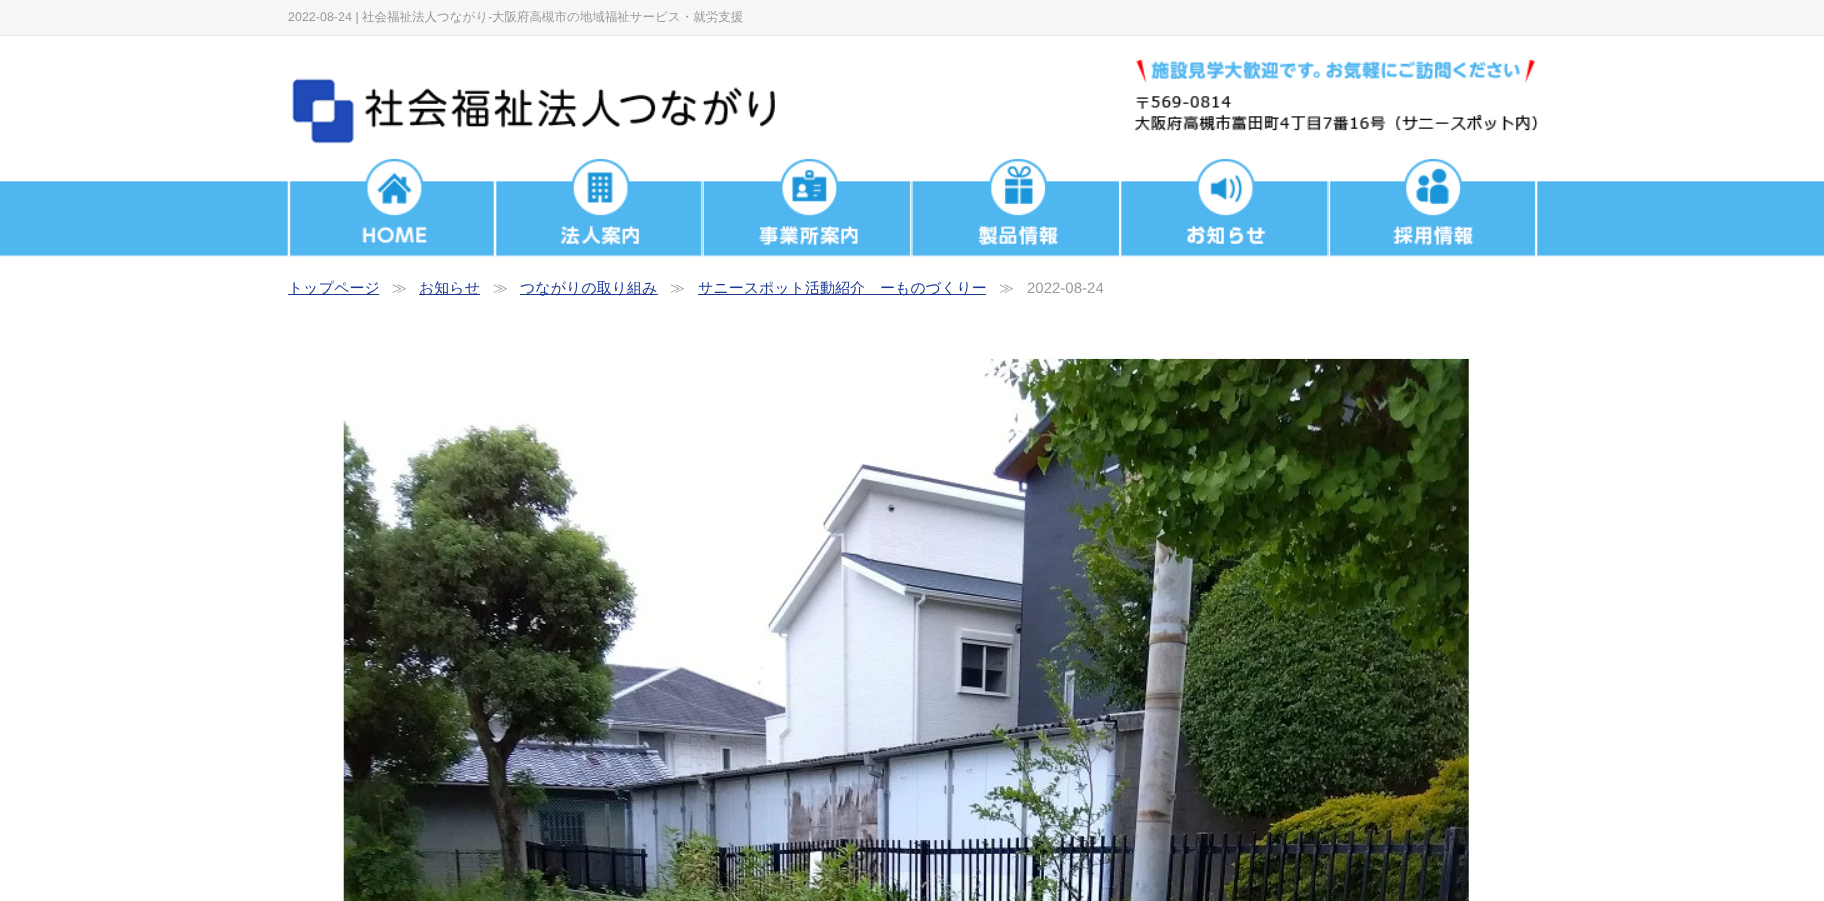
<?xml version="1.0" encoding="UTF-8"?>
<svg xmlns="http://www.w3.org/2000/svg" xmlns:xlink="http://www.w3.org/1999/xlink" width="1824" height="901">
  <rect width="100%" height="100%" fill="#ffffff" />
  <rect width="1824" height="35" fill="#f7f7f7" />
  <rect y="35" width="1824" height="1" fill="#e7e7e7" />
  <image x="292" y="78" width="483" height="66" xlink:href="image1.png" />
  <image x="1135" y="59" width="403" height="72" xlink:href="image2.png" />
  <image x="0" y="159" width="1824" height="98" xlink:href="image3.png" />
  <image x="287" y="158" width="208" height="99" xlink:href="image4.png" />
  <image x="495" y="158" width="208" height="99" xlink:href="image5.png" />
  <image x="702" y="158" width="210" height="99" xlink:href="image6.png" />
  <image x="911" y="158" width="207" height="99" xlink:href="image7.png" />
  <image x="1118" y="158" width="211" height="99" xlink:href="image8.png" />
  <image x="1328" y="158" width="210" height="99" xlink:href="image9.png" />
  <rect x="288" y="294" width="91" height="1" fill="#1d3994" />
  <rect x="419" y="294" width="61" height="1" fill="#1d3994" />
  <rect x="520" y="294" width="138" height="1" fill="#1d3994" />
  <rect x="698" y="294" width="288" height="1" fill="#1d3994" />
  <image x="343" y="358" width="1126" height="543" xlink:href="image10.png" />
  <text x="288" y="21" style="font-family: Liberation Sans; font-size: 12.5px; fill: #999999">2022-08-24 |</text>
  <text x="362" y="21" style="font-family: WenQuanYi Zen Hei; font-size: 12.5px; font-weight: 500; fill: #999999">社会福祉法人つながり</text>
  <text x="488" y="21" style="font-family: Liberation Sans; font-size: 12.5px; fill: #999999">-</text>
  <text x="492" y="21" style="font-family: WenQuanYi Zen Hei; font-size: 12.5px; font-weight: 500; fill: #999999">大阪府高槻市の地域福祉サービス・就労支援</text>
  <text x="288" y="293" style="font-family: WenQuanYi Zen Hei; font-size: 15px; font-weight: 500; fill: #1d3994">トップページ</text>
  <text x="392" y="293" style="font-family: WenQuanYi Zen Hei; font-size: 15px; font-weight: 500; fill: #999999">≫</text>
  <text x="419" y="293" style="font-family: WenQuanYi Zen Hei; font-size: 15px; font-weight: 500; fill: #1d3994">お知らせ</text>
  <text x="493" y="293" style="font-family: WenQuanYi Zen Hei; font-size: 15px; font-weight: 500; fill: #999999">≫</text>
  <text x="520" y="293" style="font-family: WenQuanYi Zen Hei; font-size: 15px; font-weight: 500; fill: #1d3994">つながりの取り組み</text>
  <text x="670" y="293" style="font-family: WenQuanYi Zen Hei; font-size: 15px; font-weight: 500; fill: #999999">≫</text>
  <text x="698" y="293" style="font-family: WenQuanYi Zen Hei; font-size: 15px; font-weight: 500; fill: #1d3994">サニースポット活動紹介　ーものづくりー</text>
  <text x="999" y="293" style="font-family: WenQuanYi Zen Hei; font-size: 15px; font-weight: 500; fill: #999999">≫</text>
  <text x="1027" y="293" style="font-family: Liberation Sans; font-size: 15px; fill: #999999">2022-08-24</text>
</svg>
